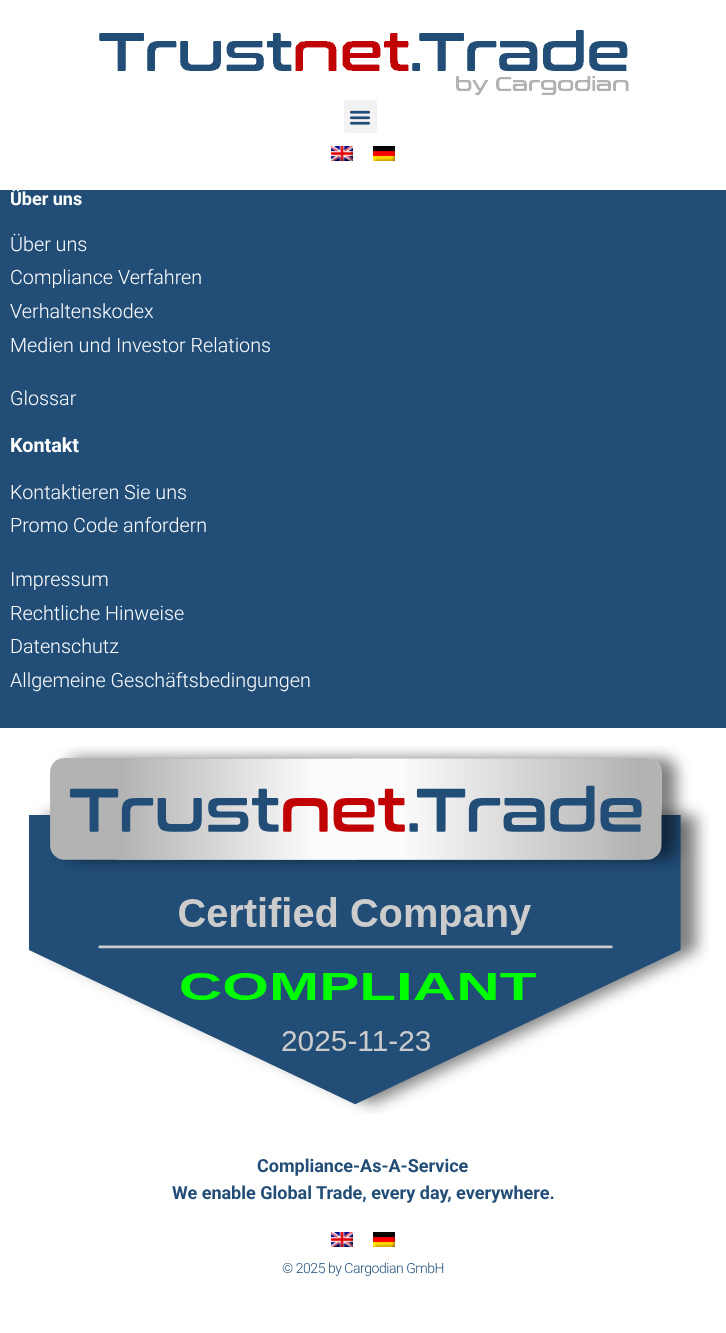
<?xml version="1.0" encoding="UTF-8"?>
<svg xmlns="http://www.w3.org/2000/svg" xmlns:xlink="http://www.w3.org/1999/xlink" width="726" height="1333">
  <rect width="100%" height="100%" fill="#ffffff" />
  <image x="99" y="30" width="530" height="65" xlink:href="image1.png" />
  <rect x="344" y="100" width="33" height="33" rx="3" fill="#f2f2f2" />
  <image x="349" y="110" width="22" height="15" xlink:href="image2.png" />
  <image x="331" y="146" width="22" height="15" xlink:href="image3.png" />
  <image x="373" y="146" width="22" height="15" xlink:href="image4.png" />
  <rect y="190" width="726" height="538" fill="#214d77" />
  <image x="28" y="746" width="681" height="368" xlink:href="image5.png" />
  <image x="331" y="1232" width="22" height="15" xlink:href="image6.png" />
  <image x="373" y="1232" width="22" height="15" xlink:href="image4.png" />
  <text x="10" y="205" style="font-family: Roboto; font-size: 18px; font-weight: bold; fill: #ffffff">Über uns</text>
  <text x="10" y="251" style="font-family: Roboto; font-size: 19.75px; font-weight: 300; fill: #ffffff">Über uns</text>
  <text x="10" y="284" style="font-family: Roboto; font-size: 19.75px; font-weight: 300; fill: #ffffff">Compliance Verfahren</text>
  <text x="10" y="318" style="font-family: Roboto; font-size: 19.75px; font-weight: 300; fill: #ffffff">Verhaltenskodex</text>
  <text x="10" y="352" style="font-family: Roboto; font-size: 19.75px; font-weight: 300; fill: #ffffff">Medien und Investor Relations</text>
  <text x="10" y="405" style="font-family: Roboto; font-size: 19.75px; font-weight: 300; fill: #ffffff">Glossar</text>
  <text x="10" y="452" style="font-family: Roboto; font-size: 19.75px; font-weight: bold; fill: #ffffff">Kontakt</text>
  <text x="10" y="499" style="font-family: Roboto; font-size: 19.75px; font-weight: 300; fill: #ffffff">Kontaktieren Sie uns</text>
  <text x="10" y="532" style="font-family: Roboto; font-size: 19.75px; font-weight: 300; fill: #ffffff">Promo Code anfordern</text>
  <text x="10" y="586" style="font-family: Roboto; font-size: 19.75px; font-weight: 300; fill: #ffffff">Impressum</text>
  <text x="10" y="620" style="font-family: Roboto; font-size: 19.75px; font-weight: 300; fill: #ffffff">Rechtliche Hinweise</text>
  <text x="10" y="653" style="font-family: Roboto; font-size: 19.75px; font-weight: 300; fill: #ffffff">Datenschutz</text>
  <text x="10" y="687" style="font-family: Roboto; font-size: 19.75px; font-weight: 300; fill: #ffffff">Allgemeine Geschäftsbedingungen</text>
  <text x="257" y="1172" style="font-family: Roboto; font-size: 18px; font-weight: bold; fill: #214d77">Compliance-As-A-Service</text>
  <text x="172" y="1199" style="font-family: Roboto; font-size: 18px; font-weight: bold; fill: #214d77">We enable Global Trade, every day, everywhere.</text>
  <text x="282" y="1273" style="font-family: Roboto; font-size: 14px; font-weight: 300; letter-spacing: -0.45px; fill: #214d77">© 2025 by Cargodian GmbH</text>
</svg>
